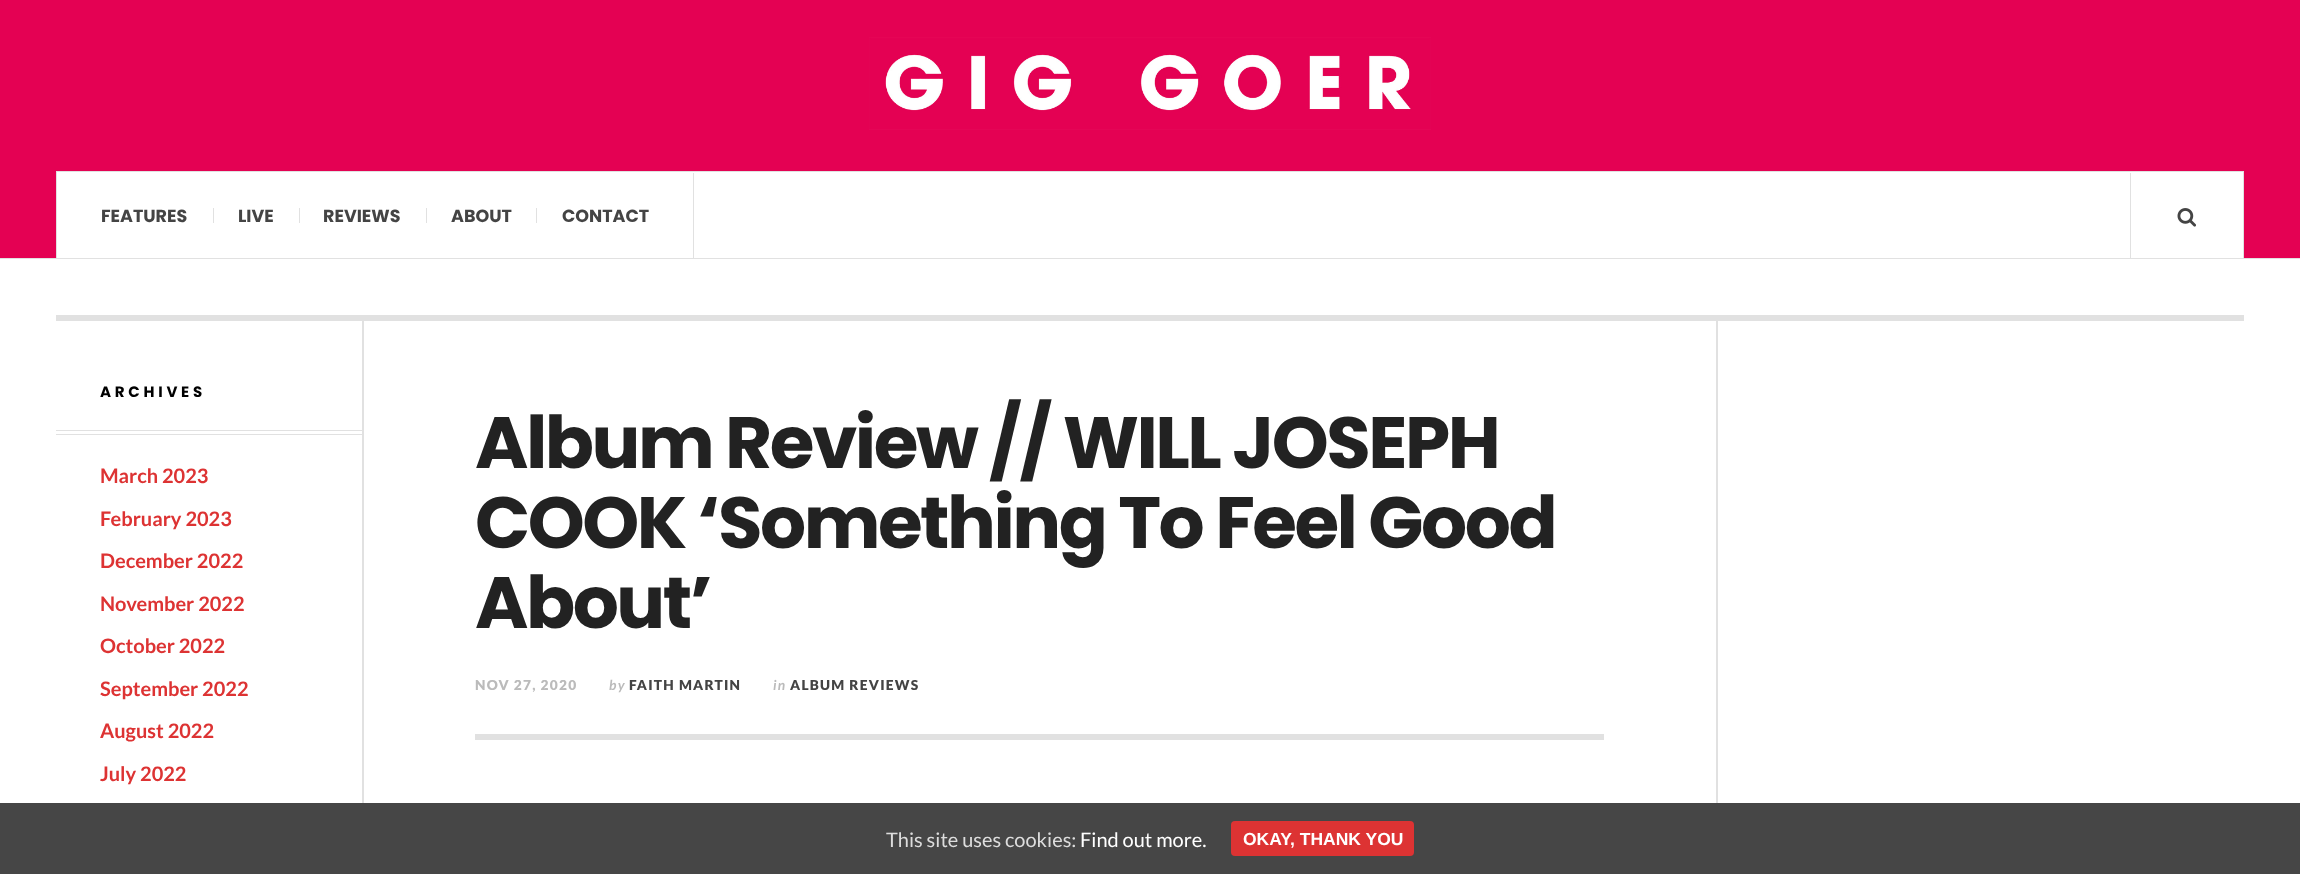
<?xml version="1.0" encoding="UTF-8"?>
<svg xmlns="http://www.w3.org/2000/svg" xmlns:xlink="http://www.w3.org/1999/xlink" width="2300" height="874">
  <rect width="100%" height="100%" fill="#ffffff" />
  <rect width="2300" height="258" fill="#e40153" />
  <rect y="258" width="2300" height="1" fill="#e1e1e1" />
  <image x="869" y="37" width="562" height="93" xlink:href="image1.png" />
  <rect x="56.5" y="171.5" width="2187" height="87" fill="#ffffff" stroke="#e1e1e1" />
  <rect x="693" y="173" width="1" height="85" fill="#e1e1e1" />
  <rect x="213" y="208" width="1" height="15" fill="#e1e1e1" />
  <rect x="299" y="208" width="1" height="15" fill="#e1e1e1" />
  <rect x="426" y="208" width="1" height="15" fill="#e1e1e1" />
  <rect x="536" y="208" width="1" height="15" fill="#e1e1e1" />
  <rect x="2130" y="173" width="1" height="85" fill="#e1e1e1" />
  <image x="2177" y="208" width="19" height="19" xlink:href="image2.png" />
  <rect x="56" y="315" width="2188" height="6" fill="#e1e1e1" />
  <path d="M 58 321 h 304 v 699 h 2 v -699 z" fill="#e1e1e1" />
  <rect x="56" y="430" width="307" height="1" fill="#e1e1e1" />
  <rect x="56" y="434" width="307" height="1" fill="#e1e1e1" />
  <rect x="475" y="734" width="1129" height="6" fill="#e1e1e1" />
  <path d="M 1716 321 v 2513 h 527 h -525 v -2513 h 525 z" fill="#e1e1e1" />
  <rect y="803" width="2300" height="71" fill="#464646" />
  <rect x="1231" y="821" width="183" height="35" rx="4" fill="#dd3333" />
  <text x="101" y="222" style="font-family: Poppins; font-size: 17.5px; font-weight: bold; fill: #444444">FEATURES</text>
  <text x="238" y="222" style="font-family: Poppins; font-size: 17.5px; font-weight: bold; fill: #444444">LIVE</text>
  <text x="323" y="222" style="font-family: Poppins; font-size: 17.5px; font-weight: bold; fill: #444444">REVIEWS</text>
  <text x="451" y="222" style="font-family: Poppins; font-size: 17.5px; font-weight: bold; fill: #444444">ABOUT</text>
  <text x="562" y="222" style="font-family: Poppins; font-size: 17.5px; font-weight: bold; fill: #444444">CONTACT</text>
  <text x="100" y="397" style="font-family: Poppins; font-size: 15px; font-weight: bold; letter-spacing: 3.75px; fill: #000000">ARCHIVES</text>
  <text x="100" y="483" style="font-family: Lato; font-size: 20px; font-weight: bold; fill: #dd3333">March 2023</text>
  <text x="100" y="526" style="font-family: Lato; font-size: 20px; font-weight: bold; fill: #dd3333">February 2023</text>
  <text x="100" y="568" style="font-family: Lato; font-size: 20px; font-weight: bold; fill: #dd3333">December 2022</text>
  <text x="100" y="611" style="font-family: Lato; font-size: 20px; font-weight: bold; fill: #dd3333">November 2022</text>
  <text x="100" y="653" style="font-family: Lato; font-size: 20px; font-weight: bold; fill: #dd3333">October 2022</text>
  <text x="100" y="696" style="font-family: Lato; font-size: 20px; font-weight: bold; fill: #dd3333">September 2022</text>
  <text x="100" y="738" style="font-family: Lato; font-size: 20px; font-weight: bold; fill: #dd3333">August 2022</text>
  <text x="100" y="781" style="font-family: Lato; font-size: 20px; font-weight: bold; fill: #dd3333">July 2022</text>
  <text x="475" y="468" style="font-family: Poppins; font-size: 72.5px; font-weight: bold; letter-spacing: -2.5px; fill: #222222">Album Review // WILL JOSEPH</text>
  <text x="475" y="548" style="font-family: Poppins; font-size: 72.5px; font-weight: bold; letter-spacing: -2.5px; fill: #222222">COOK ‘Something To Feel Good</text>
  <text x="475" y="628" style="font-family: Poppins; font-size: 72.5px; font-weight: bold; letter-spacing: -2.5px; fill: #222222">About’</text>
  <text x="475" y="690" style="font-family: Lato; font-size: 13.75px; font-weight: 900; letter-spacing: 1.25px; fill: #bbbbbb">NOV 27, 2020</text>
  <text x="609" y="690" style="font-family: Lato; font-size: 13.75px; font-weight: bold; font-style: italic; letter-spacing: 1.25px; fill: #bbbbbb">by</text>
  <text x="629" y="690" style="font-family: Lato; font-size: 13.75px; font-weight: 900; letter-spacing: 1.25px; fill: #444444">FAITH MARTIN</text>
  <text x="773" y="690" style="font-family: Lato; font-size: 13.75px; font-weight: bold; font-style: italic; letter-spacing: 1.25px; fill: #bbbbbb">in</text>
  <text x="790" y="690" style="font-family: Lato; font-size: 13.75px; font-weight: 900; letter-spacing: 1.25px; fill: #444444">ALBUM REVIEWS</text>
  <text x="886" y="847" style="font-family: Lato; font-size: 20px; fill: #dddddd">This site uses cookies:</text>
  <text x="1080" y="847" style="font-family: Lato; font-size: 20px; fill: #ffffff">Find out more.</text>
  <text x="1243" y="845" style="font-family: Liberation Sans; font-size: 17.5px; font-weight: bold; fill: #ffffff">OKAY, THANK YOU</text>
</svg>
